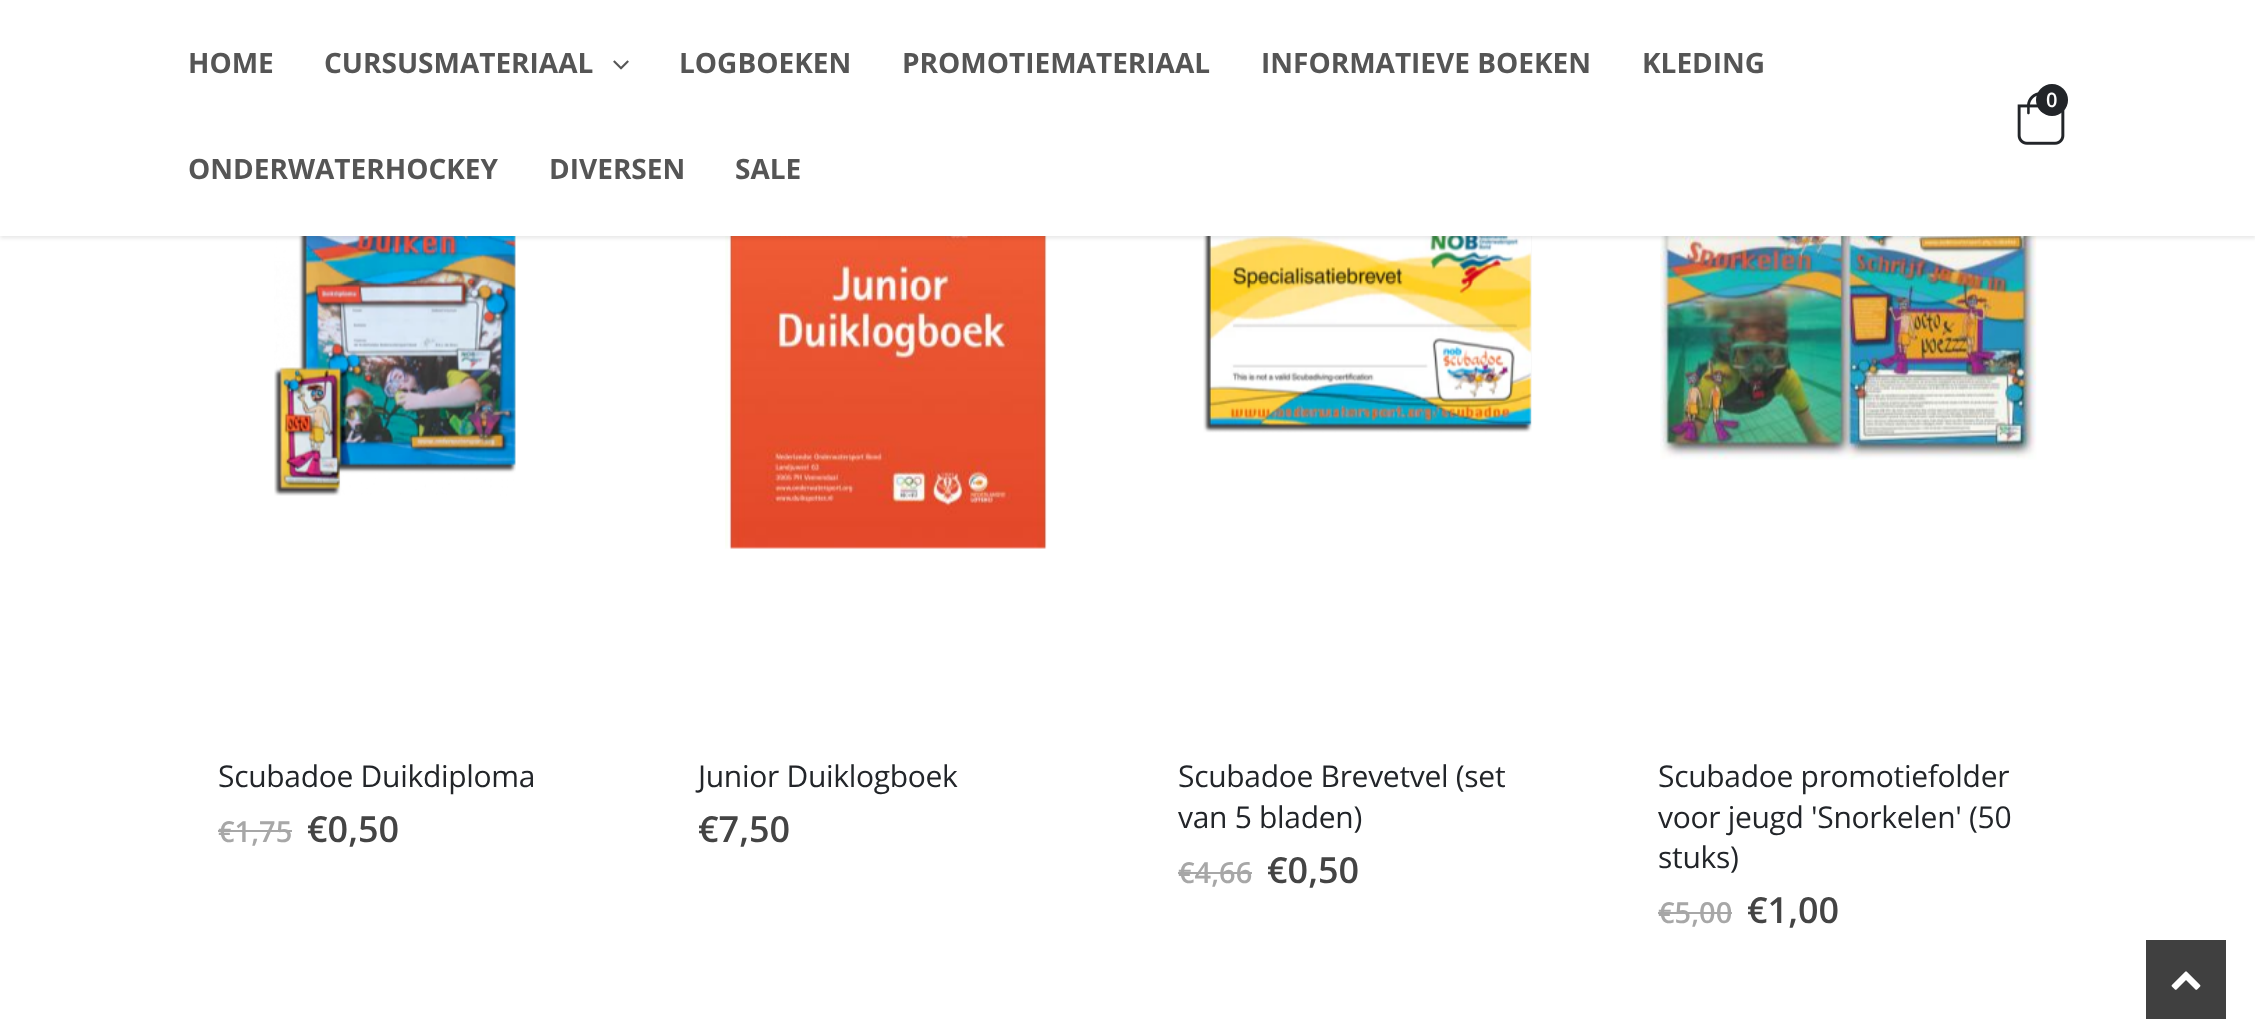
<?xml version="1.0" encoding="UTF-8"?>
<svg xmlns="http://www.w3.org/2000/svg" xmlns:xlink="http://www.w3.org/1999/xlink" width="2255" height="1019">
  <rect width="100%" height="100%" fill="#ffffff" />
  <image x="274" y="236" width="242" height="260" xlink:href="image3.png" />
  <image x="725" y="236" width="322" height="313" xlink:href="image4.png" />
  <image x="1203" y="236" width="329" height="197" xlink:href="image5.png" />
  <image x="1660" y="236" width="377" height="224" xlink:href="image6.png" />
  <rect y="2" width="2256" height="236" fill="#000000" fill-opacity="0.1" filter="blur(2px)" />
  <rect width="2255" height="236" fill="#ffffff" />
  <image x="613" y="60" width="16" height="10" xlink:href="image1.png" />
  <image x="2017" y="92" width="48" height="53" xlink:href="image2.png" />
  <circle cx="2052" cy="100" r="16" fill="#222529" />
  <rect x="218" y="830" width="74" height="2" fill="#a7a7a7" />
  <rect x="1178" y="872" width="74" height="2" fill="#a7a7a7" />
  <rect x="1658" y="912" width="74" height="2" fill="#a7a7a7" />
  <rect x="2146" y="940" width="80" height="79" fill="#404040" />
  <image x="2171" y="971" width="30" height="19" xlink:href="image7.png" />
  <text x="188" y="73" style="font-family: Open Sans; font-size: 28px; font-weight: bold; fill: #555555">HOME</text>
  <text x="324" y="73" style="font-family: Open Sans; font-size: 28px; font-weight: bold; fill: #555555">CURSUSMATERIAAL</text>
  <text x="679" y="73" style="font-family: Open Sans; font-size: 28px; font-weight: bold; fill: #555555">LOGBOEKEN</text>
  <text x="902" y="73" style="font-family: Open Sans; font-size: 28px; font-weight: bold; fill: #555555">PROMOTIEMATERIAAL</text>
  <text x="1261" y="73" style="font-family: Open Sans; font-size: 28px; font-weight: bold; fill: #555555">INFORMATIEVE BOEKEN</text>
  <text x="1642" y="73" style="font-family: Open Sans; font-size: 28px; font-weight: bold; fill: #555555">KLEDING</text>
  <text x="188" y="179" style="font-family: Open Sans; font-size: 28px; font-weight: bold; fill: #555555">ONDERWATERHOCKEY</text>
  <text x="549" y="179" style="font-family: Open Sans; font-size: 28px; font-weight: bold; fill: #555555">DIVERSEN</text>
  <text x="735" y="179" style="font-family: Open Sans; font-size: 28px; font-weight: bold; fill: #555555">SALE</text>
  <text x="2046" y="107" style="font-family: Open Sans; font-size: 20px; font-weight: 600; fill: #ffffff">0</text>
  <text x="218" y="787" style="font-family: Open Sans; font-size: 30px; letter-spacing: -0.3px; fill: #222529">Scubadoe Duikdiploma</text>
  <text x="218" y="842" style="font-family: Open Sans; font-size: 29px; font-weight: 600; fill: #a7a7a7">€1,75</text>
  <text x="307" y="842" style="font-family: Open Sans; font-size: 36px; font-weight: 600; fill: #444444">€0,50</text>
  <text x="698" y="787" style="font-family: Open Sans; font-size: 30px; letter-spacing: -0.3px; fill: #222529">Junior Duiklogboek</text>
  <text x="698" y="842" style="font-family: Open Sans; font-size: 36px; font-weight: 600; fill: #444444">€7,50</text>
  <text x="1178" y="787" style="font-family: Open Sans; font-size: 30px; letter-spacing: -0.3px; fill: #222529">Scubadoe Brevetvel (set</text>
  <text x="1178" y="828" style="font-family: Open Sans; font-size: 30px; letter-spacing: -0.3px; fill: #222529">van 5 bladen)</text>
  <text x="1178" y="883" style="font-family: Open Sans; font-size: 29px; font-weight: 600; fill: #a7a7a7">€4,66</text>
  <text x="1267" y="883" style="font-family: Open Sans; font-size: 36px; font-weight: 600; fill: #444444">€0,50</text>
  <text x="1658" y="787" style="font-family: Open Sans; font-size: 30px; letter-spacing: -0.3px; fill: #222529">Scubadoe promotiefolder</text>
  <text x="1658" y="828" style="font-family: Open Sans; font-size: 30px; letter-spacing: -0.3px; fill: #222529">voor jeugd 'Snorkelen' (50</text>
  <text x="1658" y="868" style="font-family: Open Sans; font-size: 30px; letter-spacing: -0.3px; fill: #222529">stuks)</text>
  <text x="1658" y="923" style="font-family: Open Sans; font-size: 29px; font-weight: 600; fill: #a7a7a7">€5,00</text>
  <text x="1747" y="923" style="font-family: Open Sans; font-size: 36px; font-weight: 600; fill: #444444">€1,00</text>
</svg>
